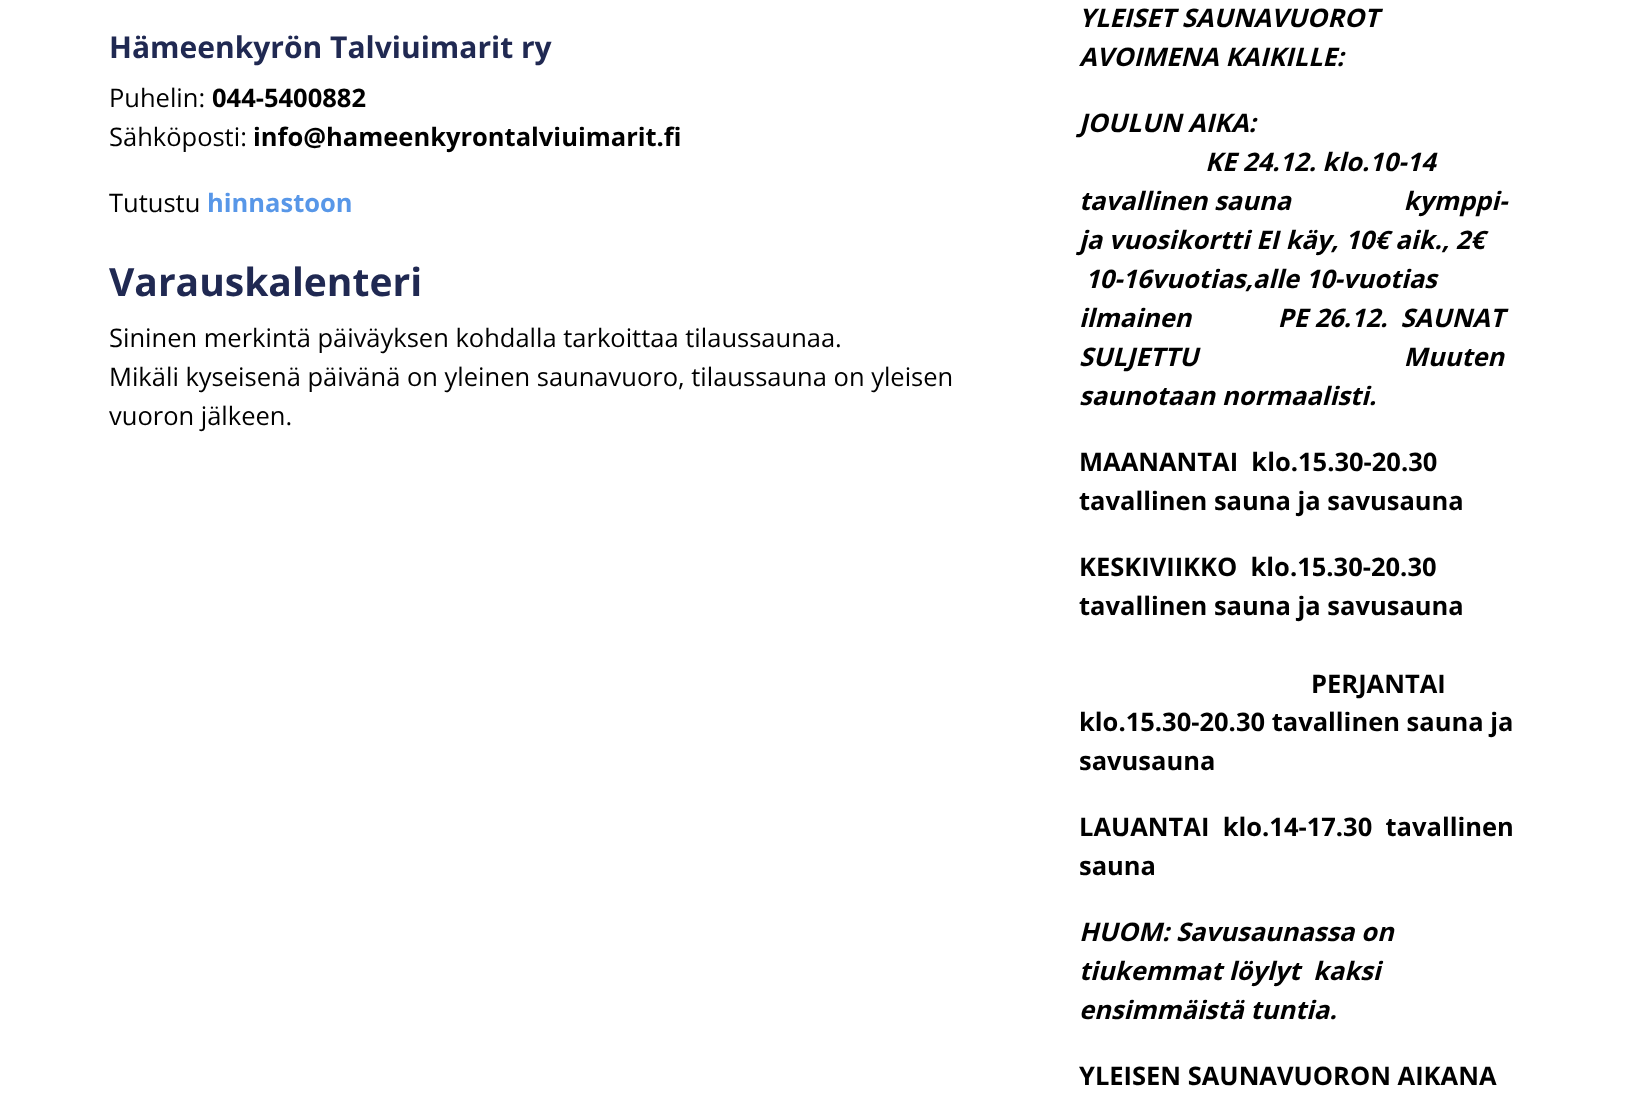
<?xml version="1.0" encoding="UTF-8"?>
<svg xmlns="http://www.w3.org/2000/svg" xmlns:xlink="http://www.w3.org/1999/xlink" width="1627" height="1111">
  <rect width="100%" height="100%" fill="#ffffff" />
  <text x="109" y="58" style="font-family: Open Sans; font-size: 30px; font-weight: bold; fill: #202952">Hämeenkyrön Talviuimarit ry</text>
  <text x="109" y="107" style="font-family: Open Sans; font-size: 25.5px; fill: #000000">Puhelin:</text>
  <text x="212" y="107" style="font-family: Open Sans; font-size: 25.5px; font-weight: bold; fill: #000000">044-5400882</text>
  <text x="109" y="146" style="font-family: Open Sans; font-size: 25.5px; fill: #000000">Sähköposti:</text>
  <text x="253" y="146" style="font-family: Open Sans; font-size: 25.5px; font-weight: bold; fill: #000000">info@hameenkyrontalviuimarit.fi</text>
  <text x="109" y="212" style="font-family: Open Sans; font-size: 25.5px; fill: #000000">Tutustu</text>
  <text x="207" y="212" style="font-family: Open Sans; font-size: 25.5px; font-weight: bold; fill: #5897e8">hinnastoon</text>
  <text x="109" y="296" style="font-family: Open Sans; font-size: 39px; font-weight: bold; fill: #202952">Varauskalenteri</text>
  <text x="109" y="347" style="font-family: Open Sans; font-size: 25.5px; fill: #000000">Sininen merkintä päiväyksen kohdalla tarkoittaa tilaussaunaa.</text>
  <text x="109" y="386" style="font-family: Open Sans; font-size: 25.5px; fill: #000000">Mikäli kyseisenä päivänä on yleinen saunavuoro, tilaussauna on yleisen</text>
  <text x="109" y="425" style="font-family: Open Sans; font-size: 25.5px; fill: #000000">vuoron jälkeen.</text>
  <text x="1079" y="27" style="font-family: Open Sans; font-size: 25.5px; font-weight: bold; font-style: italic; fill: #000000">YLEISET SAUNAVUOROT</text>
  <text x="1079" y="66" style="font-family: Open Sans; font-size: 25.5px; font-weight: bold; font-style: italic; fill: #000000">AVOIMENA KAIKILLE:</text>
  <text x="1079" y="132" style="font-family: Open Sans; font-size: 25.5px; font-weight: bold; font-style: italic; fill: #000000">JOULUN AIKA:</text>
  <text x="1205" y="171" style="font-family: Open Sans; font-size: 25.5px; font-weight: bold; font-style: italic; fill: #000000">KE 24.12. klo.10-14</text>
  <text x="1079" y="210" style="font-family: Open Sans; font-size: 25.5px; font-weight: bold; font-style: italic; fill: #000000" xml:space="preserve">tavallinen sauna                 kymppi-</text>
  <text x="1079" y="249" style="font-family: Open Sans; font-size: 25.5px; font-weight: bold; font-style: italic; fill: #000000">ja vuosikortti EI käy, 10€ aik., 2€</text>
  <text x="1085" y="288" style="font-family: Open Sans; font-size: 25.5px; font-weight: bold; font-style: italic; fill: #000000">10-16vuotias,alle 10-vuotias</text>
  <text x="1079" y="327" style="font-family: Open Sans; font-size: 25.5px; font-weight: bold; font-style: italic; fill: #000000" xml:space="preserve">ilmainen             PE 26.12.  SAUNAT</text>
  <text x="1079" y="366" style="font-family: Open Sans; font-size: 25.5px; font-weight: bold; font-style: italic; fill: #000000" xml:space="preserve">SULJETTU                               Muuten</text>
  <text x="1079" y="405" style="font-family: Open Sans; font-size: 25.5px; font-weight: bold; font-style: italic; fill: #000000">saunotaan normaalisti.</text>
  <text x="1079" y="471" style="font-family: Open Sans; font-size: 25.5px; font-weight: bold; fill: #000000" xml:space="preserve">MAANANTAI  klo.15.30-20.30</text>
  <text x="1079" y="510" style="font-family: Open Sans; font-size: 25.5px; font-weight: bold; fill: #000000">tavallinen sauna ja savusauna</text>
  <text x="1079" y="576" style="font-family: Open Sans; font-size: 25.5px; font-weight: bold; fill: #000000" xml:space="preserve">KESKIVIIKKO  klo.15.30-20.30</text>
  <text x="1079" y="615" style="font-family: Open Sans; font-size: 25.5px; font-weight: bold; fill: #000000">tavallinen sauna ja savusauna</text>
  <text x="1311" y="693" style="font-family: Open Sans; font-size: 25.5px; font-weight: bold; fill: #000000">PERJANTAI</text>
  <text x="1079" y="731" style="font-family: Open Sans; font-size: 25.5px; font-weight: bold; fill: #000000">klo.15.30-20.30 tavallinen sauna ja</text>
  <text x="1079" y="770" style="font-family: Open Sans; font-size: 25.5px; font-weight: bold; fill: #000000">savusauna</text>
  <text x="1079" y="836" style="font-family: Open Sans; font-size: 25.5px; font-weight: bold; fill: #000000" xml:space="preserve">LAUANTAI  klo.14-17.30  tavallinen</text>
  <text x="1079" y="875" style="font-family: Open Sans; font-size: 25.5px; font-weight: bold; fill: #000000">sauna</text>
  <text x="1079" y="941" style="font-family: Open Sans; font-size: 25.5px; font-weight: bold; font-style: italic; fill: #000000">HUOM: Savusaunassa on</text>
  <text x="1079" y="980" style="font-family: Open Sans; font-size: 25.5px; font-weight: bold; font-style: italic; fill: #000000">tiukemmat löylyt</text>
  <text x="1313" y="980" style="font-family: Open Sans; font-size: 25.5px; font-weight: bold; font-style: italic; fill: #000000">kaksi</text>
  <text x="1079" y="1019" style="font-family: Open Sans; font-size: 25.5px; font-weight: bold; font-style: italic; fill: #000000">ensimmäistä tuntia.</text>
  <text x="1079" y="1085" style="font-family: Open Sans; font-size: 25.5px; font-weight: bold; fill: #000000">YLEISEN SAUNAVUORON AIKANA</text>
</svg>
